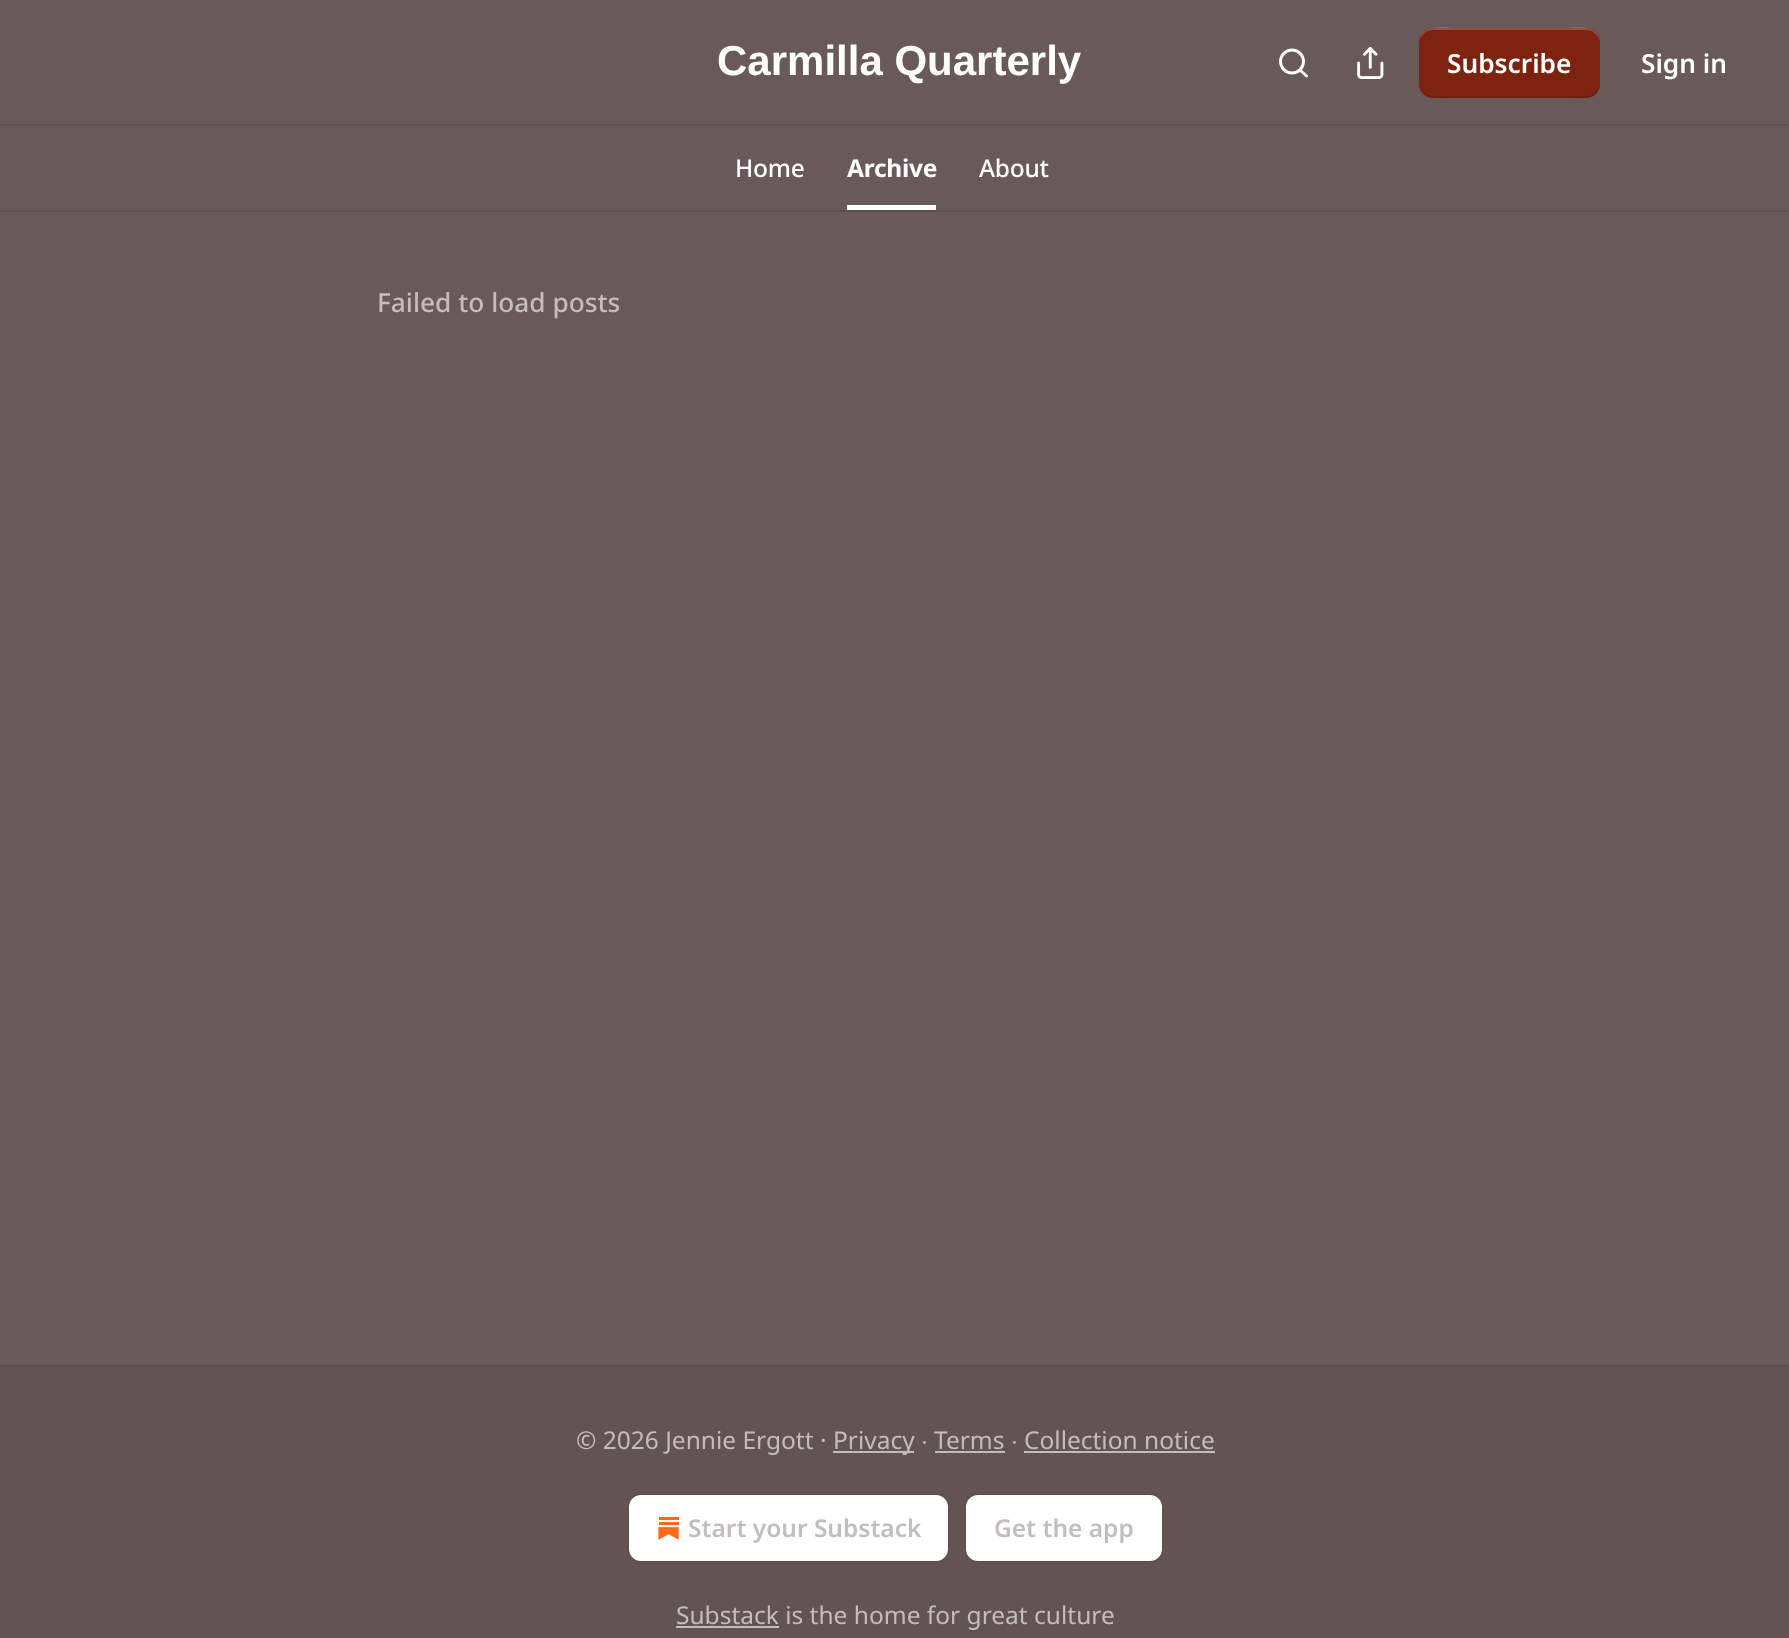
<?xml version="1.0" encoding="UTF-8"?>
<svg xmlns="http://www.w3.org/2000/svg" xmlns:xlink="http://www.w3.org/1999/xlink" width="1789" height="1638">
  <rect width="100%" height="100%" fill="#695959" />
  <circle cx="1292" cy="61.5" r="11.5" fill="none" stroke="#ffffff" stroke-width="2.9" />
  <path d="M 1306.5 76 l -6.5 -6" fill="none" stroke="#ffffff" stroke-width="2.9" stroke-linecap="round" stroke-linejoin="round" />
  <image x="1357" y="47" width="27" height="32" xlink:href="image1.png" />
  <rect x="1419" y="28" width="181" height="70" rx="14" fill="#7e2310" />
  <path d="M 1419 82 c 0 22 25 16 39 16 h 102 c 15 0 40 6 40 -16 c 0 8 -7 14 -14 14 h -153 c -7 0 -14 -6 -14 -14 z" fill="#000000" fill-opacity="0.1" />
  <path d="M 1433 30 h 153 c 7 0 14 6 14 14 c 0 -22 -25 -16 -40 -16 h -102 c -14 0 -39 -6 -39 16 c 0 -8 7 -14 14 -14 z" fill="#ffffff" fill-opacity="0.2" />
  <rect y="124" width="1789" height="2" fill="#5f5050" />
  <rect y="210" width="1789" height="2" fill="#5f5050" />
  <rect x="847" y="205" width="89" height="5" fill="#ffffff" />
  <rect y="1367" width="1789" height="271" fill="#635454" />
  <rect y="1365" width="1789" height="2" fill="#5f5050" />
  <rect x="833" y="1451" width="81" height="2" fill="#c3bdbd" />
  <rect x="935" y="1451" width="70" height="2" fill="#c3bdbd" />
  <rect x="1024" y="1451" width="191" height="2" fill="#c3bdbd" />
  <rect x="628" y="1494" width="321" height="68" rx="13" fill="#ffffff" stroke="#5f5050" stroke-width="2" />
  <image x="658" y="1517" width="21" height="23" xlink:href="image2.png" />
  <rect x="965" y="1494" width="198" height="68" rx="13" fill="#ffffff" stroke="#5f5050" stroke-width="2" />
  <rect x="676" y="1626" width="103" height="2" fill="#c3bdbd" />
  <text x="717" y="75" style="font-family: Liberation Sans; font-size: 42px; font-weight: bold; fill: #ffffff">Carmilla Quarterly</text>
  <text x="1447" y="73" style="font-family: Noto Sans; font-size: 26.25px; font-weight: 600; fill: #ffffff">Subscribe</text>
  <text x="1641" y="73" style="font-family: Noto Sans; font-size: 26.25px; font-weight: 600; fill: #ffffff">Sign in</text>
  <text x="735" y="177" style="font-family: Noto Sans; font-size: 24.5px; font-weight: 500; letter-spacing: -0.25px; fill: #ffffff">Home</text>
  <text x="847" y="177" style="font-family: Noto Sans; font-size: 24.5px; font-weight: bold; letter-spacing: -0.25px; fill: #ffffff">Archive</text>
  <text x="979" y="177" style="font-family: Noto Sans; font-size: 24.5px; font-weight: 500; letter-spacing: -0.25px; fill: #ffffff">About</text>
  <text x="377" y="312" style="font-family: Noto Sans; font-size: 26.25px; font-weight: 500; fill: #c3bdbd">Failed to load posts</text>
  <text x="576" y="1449" style="font-family: Noto Sans; font-size: 24.5px; fill: #c3bdbd">© 2026 Jennie Ergott ·</text>
  <text x="833" y="1449" style="font-family: Noto Sans; font-size: 24.5px; fill: #c3bdbd">Privacy</text>
  <text x="921" y="1449" style="font-family: Liberation Sans; font-size: 24.5px; fill: #c3bdbd">∙</text>
  <text x="934" y="1449" style="font-family: Noto Sans; font-size: 24.5px; fill: #c3bdbd">Terms</text>
  <text x="1011" y="1449" style="font-family: Liberation Sans; font-size: 24.5px; fill: #c3bdbd">∙</text>
  <text x="1024" y="1449" style="font-family: Noto Sans; font-size: 24.5px; fill: #c3bdbd">Collection notice</text>
  <text x="688" y="1537" style="font-family: Noto Sans; font-size: 24.5px; font-weight: 600; fill: #c3bdbd">Start your Substack</text>
  <text x="994" y="1537" style="font-family: Noto Sans; font-size: 24.5px; font-weight: 600; fill: #c3bdbd">Get the app</text>
  <text x="676" y="1624" style="font-family: Noto Sans; font-size: 24.5px; fill: #c3bdbd">Substack is the home for great culture</text>
</svg>
